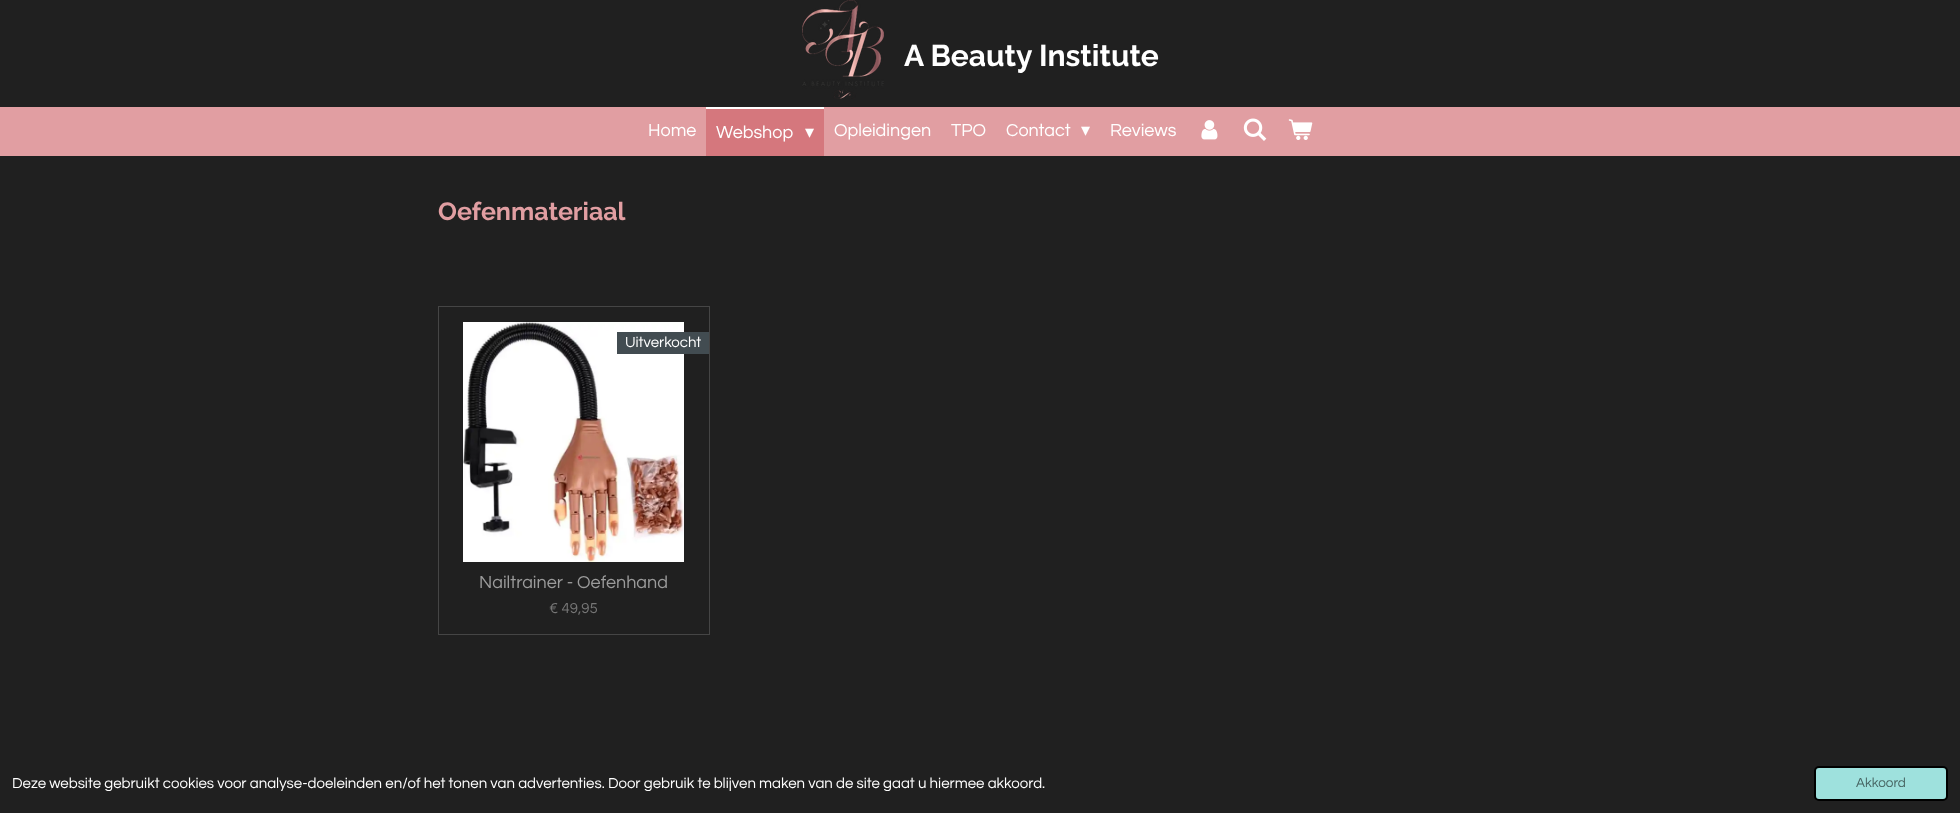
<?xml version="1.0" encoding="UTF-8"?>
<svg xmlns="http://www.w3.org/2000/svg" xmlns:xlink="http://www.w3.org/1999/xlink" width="1960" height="813">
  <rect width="100%" height="100%" fill="#202020" />
  <image x="802" y="0" width="82" height="99" xlink:href="image1.png" />
  <rect y="107" width="1960" height="49" fill="#e19ea2" />
  <rect x="706" y="109" width="118" height="47" fill="#d5777d" />
  <rect x="706" y="107" width="118" height="2" fill="#ffffff" />
  <image x="1201" y="120" width="17" height="20" xlink:href="image2.png" />
  <image x="1243" y="118" width="24" height="23" xlink:href="image3.png" />
  <image x="1288" y="119" width="25" height="21" xlink:href="image4.png" />
  <rect x="438.5" y="306.5" width="271" height="328" fill="none" stroke="#454545" />
  <image x="463" y="322" width="221" height="240" xlink:href="image5.png" />
  <rect x="617" y="332" width="92" height="22" fill="#424c51" />
  <rect x="1815" y="767" width="132" height="33" rx="4" fill="#9ee1dd" stroke="#000000" stroke-width="2" />
  <text x="904" y="66" style="font-family: Raleway; font-size: 30px; font-weight: bold; fill: #ffffff">A Beauty Institute</text>
  <text x="648" y="136" style="font-family: Questrial; font-size: 18px; fill: #ffffff">Home</text>
  <text x="716" y="138" style="font-family: Questrial; font-size: 18px; fill: #ffffff">Webshop</text>
  <text x="805" y="138" style="font-family: DejaVu Sans; font-size: 18px; fill: #ffffff">▾</text>
  <text x="834" y="136" style="font-family: Questrial; font-size: 18px; fill: #ffffff">Opleidingen</text>
  <text x="951" y="136" style="font-family: Questrial; font-size: 18px; fill: #ffffff">TPO</text>
  <text x="1006" y="136" style="font-family: Questrial; font-size: 18px; fill: #ffffff">Contact</text>
  <text x="1081" y="136" style="font-family: DejaVu Sans; font-size: 18px; fill: #ffffff">▾</text>
  <text x="1110" y="136" style="font-family: Questrial; font-size: 18px; fill: #ffffff">Reviews</text>
  <text x="438" y="220" style="font-family: Raleway; font-size: 25px; font-weight: bold; fill: #e19ea2">Oefenmateriaal</text>
  <text x="625" y="347" style="font-family: Questrial; font-size: 15px; fill: #ffffff">Uitverkocht</text>
  <text x="479" y="588" style="font-family: Questrial; font-size: 18px; fill: #9b9b9b">Nailtrainer - Oefenhand</text>
  <text x="549" y="613" style="font-family: Questrial; font-size: 15px; fill: #767676">€ 49,95</text>
  <text x="12" y="788" style="font-family: Questrial; font-size: 15px; fill: #ffffff">Deze website gebruikt cookies voor analyse-doeleinden en/of het tonen van advertenties. Door gebruik te blijven maken van de site gaat u hiermee akkoord.</text>
  <text x="1856" y="787" style="font-family: Questrial; font-size: 13.5px; fill: #476563">Akkoord</text>
</svg>
